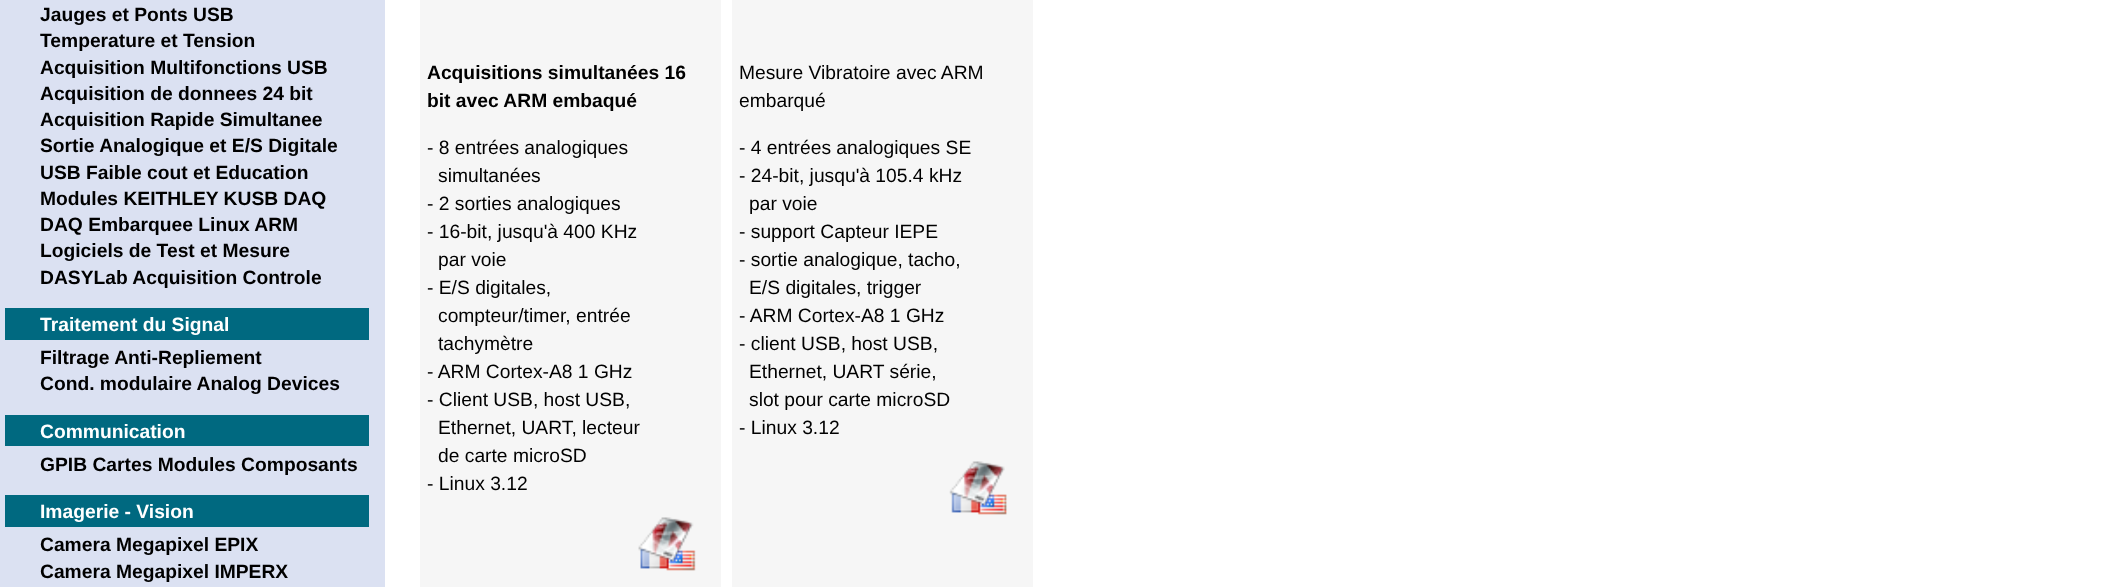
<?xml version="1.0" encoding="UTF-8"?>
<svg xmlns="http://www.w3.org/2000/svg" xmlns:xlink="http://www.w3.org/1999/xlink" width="2105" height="587">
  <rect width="100%" height="100%" fill="#ffffff" />
  <rect width="385" height="587" fill="#dbe1f2" />
  <rect x="5" y="308" width="364" height="32" fill="#006980" />
  <rect x="5" y="415" width="364" height="31" fill="#006980" />
  <rect x="5" y="495" width="364" height="32" fill="#006980" />
  <rect x="420" width="301" height="587" fill="#f6f6f6" />
  <image x="638" y="517" width="58" height="54" xlink:href="image1.png" />
  <rect x="732" width="301" height="587" fill="#f6f6f6" />
  <image x="949" y="461" width="58" height="54" xlink:href="image2.png" />
  <text x="40" y="21" style="font-family: Liberation Sans; font-size: 19.25px; font-weight: bold; fill: #000000">Jauges et Ponts USB</text>
  <text x="40" y="47" style="font-family: Liberation Sans; font-size: 19.25px; font-weight: bold; fill: #000000">Temperature et Tension</text>
  <text x="40" y="74" style="font-family: Liberation Sans; font-size: 19.25px; font-weight: bold; fill: #000000">Acquisition Multifonctions USB</text>
  <text x="40" y="100" style="font-family: Liberation Sans; font-size: 19.25px; font-weight: bold; fill: #000000">Acquisition de donnees 24 bit</text>
  <text x="40" y="126" style="font-family: Liberation Sans; font-size: 19.25px; font-weight: bold; fill: #000000">Acquisition Rapide Simultanee</text>
  <text x="40" y="152" style="font-family: Liberation Sans; font-size: 19.25px; font-weight: bold; fill: #000000">Sortie Analogique et E/S Digitale</text>
  <text x="40" y="179" style="font-family: Liberation Sans; font-size: 19.25px; font-weight: bold; fill: #000000">USB Faible cout et Education</text>
  <text x="40" y="205" style="font-family: Liberation Sans; font-size: 19.25px; font-weight: bold; fill: #000000">Modules KEITHLEY KUSB DAQ</text>
  <text x="40" y="231" style="font-family: Liberation Sans; font-size: 19.25px; font-weight: bold; fill: #000000">DAQ Embarquee Linux ARM</text>
  <text x="40" y="257" style="font-family: Liberation Sans; font-size: 19.25px; font-weight: bold; fill: #000000">Logiciels de Test et Mesure</text>
  <text x="40" y="284" style="font-family: Liberation Sans; font-size: 19.25px; font-weight: bold; fill: #000000">DASYLab Acquisition Controle</text>
  <text x="40" y="331" style="font-family: Liberation Sans; font-size: 19.25px; font-weight: bold; fill: #ffffff">Traitement du Signal</text>
  <text x="40" y="364" style="font-family: Liberation Sans; font-size: 19.25px; font-weight: bold; fill: #000000">Filtrage Anti-Repliement</text>
  <text x="40" y="390" style="font-family: Liberation Sans; font-size: 19.25px; font-weight: bold; fill: #000000">Cond. modulaire Analog Devices</text>
  <text x="40" y="438" style="font-family: Liberation Sans; font-size: 19.25px; font-weight: bold; fill: #ffffff">Communication</text>
  <text x="40" y="471" style="font-family: Liberation Sans; font-size: 19.25px; font-weight: bold; fill: #000000">GPIB Cartes Modules Composants</text>
  <text x="40" y="518" style="font-family: Liberation Sans; font-size: 19.25px; font-weight: bold; fill: #ffffff">Imagerie - Vision</text>
  <text x="40" y="551" style="font-family: Liberation Sans; font-size: 19.25px; font-weight: bold; fill: #000000">Camera Megapixel EPIX</text>
  <text x="40" y="578" style="font-family: Liberation Sans; font-size: 19.25px; font-weight: bold; fill: #000000">Camera Megapixel IMPERX</text>
  <text x="427" y="79" style="font-family: Liberation Sans; font-size: 19.25px; font-weight: bold; fill: #000000">Acquisitions simultanées 16</text>
  <text x="427" y="107" style="font-family: Liberation Sans; font-size: 19.25px; font-weight: bold; fill: #000000">bit avec ARM embaqué</text>
  <text x="427" y="154" style="font-family: Liberation Sans; font-size: 19.25px; fill: #000000">- 8 entrées analogiques</text>
  <text x="438" y="182" style="font-family: Liberation Sans; font-size: 19.25px; fill: #000000">simultanées</text>
  <text x="427" y="210" style="font-family: Liberation Sans; font-size: 19.25px; fill: #000000">- 2 sorties analogiques</text>
  <text x="427" y="238" style="font-family: Liberation Sans; font-size: 19.25px; fill: #000000">- 16-bit, jusqu'à 400 KHz</text>
  <text x="438" y="266" style="font-family: Liberation Sans; font-size: 19.25px; fill: #000000">par voie</text>
  <text x="427" y="294" style="font-family: Liberation Sans; font-size: 19.25px; fill: #000000">- E/S digitales,</text>
  <text x="438" y="322" style="font-family: Liberation Sans; font-size: 19.25px; fill: #000000">compteur/timer, entrée</text>
  <text x="438" y="350" style="font-family: Liberation Sans; font-size: 19.25px; fill: #000000">tachymètre</text>
  <text x="427" y="378" style="font-family: Liberation Sans; font-size: 19.25px; fill: #000000">- ARM Cortex-A8 1 GHz</text>
  <text x="427" y="406" style="font-family: Liberation Sans; font-size: 19.25px; fill: #000000">- Client USB, host USB,</text>
  <text x="438" y="434" style="font-family: Liberation Sans; font-size: 19.25px; fill: #000000">Ethernet, UART, lecteur</text>
  <text x="438" y="462" style="font-family: Liberation Sans; font-size: 19.25px; fill: #000000">de carte microSD</text>
  <text x="427" y="490" style="font-family: Liberation Sans; font-size: 19.25px; fill: #000000">- Linux 3.12</text>
  <text x="739" y="79" style="font-family: Liberation Sans; font-size: 19.25px; fill: #000000">Mesure Vibratoire avec ARM</text>
  <text x="739" y="107" style="font-family: Liberation Sans; font-size: 19.25px; fill: #000000">embarqué</text>
  <text x="739" y="154" style="font-family: Liberation Sans; font-size: 19.25px; fill: #000000">- 4 entrées analogiques SE</text>
  <text x="739" y="182" style="font-family: Liberation Sans; font-size: 19.25px; fill: #000000">- 24-bit, jusqu'à 105.4 kHz</text>
  <text x="749" y="210" style="font-family: Liberation Sans; font-size: 19.25px; fill: #000000">par voie</text>
  <text x="739" y="238" style="font-family: Liberation Sans; font-size: 19.25px; fill: #000000">- support Capteur IEPE</text>
  <text x="739" y="266" style="font-family: Liberation Sans; font-size: 19.25px; fill: #000000">- sortie analogique, tacho,</text>
  <text x="749" y="294" style="font-family: Liberation Sans; font-size: 19.25px; fill: #000000">E/S digitales, trigger</text>
  <text x="739" y="322" style="font-family: Liberation Sans; font-size: 19.25px; fill: #000000">- ARM Cortex-A8 1 GHz</text>
  <text x="739" y="350" style="font-family: Liberation Sans; font-size: 19.25px; fill: #000000">- client USB, host USB,</text>
  <text x="749" y="378" style="font-family: Liberation Sans; font-size: 19.25px; fill: #000000">Ethernet, UART série,</text>
  <text x="749" y="406" style="font-family: Liberation Sans; font-size: 19.25px; fill: #000000">slot pour carte microSD</text>
  <text x="739" y="434" style="font-family: Liberation Sans; font-size: 19.25px; fill: #000000">- Linux 3.12</text>
</svg>
